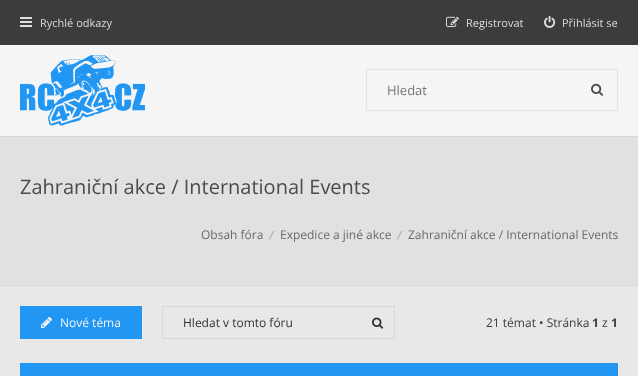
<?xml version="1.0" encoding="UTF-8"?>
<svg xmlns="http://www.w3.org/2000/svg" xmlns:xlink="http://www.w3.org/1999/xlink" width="638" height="376">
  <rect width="100%" height="100%" fill="#e8e8e8" />
  <rect width="638" height="45" fill="#3c3c3c" />
  <image x="20" y="17" width="12" height="10" xlink:href="image1.png" />
  <image x="446" y="16" width="13" height="11" xlink:href="image2.png" />
  <image x="544" y="15" width="12" height="13" xlink:href="image3.png" />
  <rect y="45" width="638" height="91" fill="#f5f5f5" />
  <image x="20" y="55" width="125" height="71" xlink:href="image4.png" />
  <rect x="366.5" y="69.5" width="251" height="41" fill="none" stroke="#e3e3e3" />
  <image x="591" y="83" width="12" height="13" xlink:href="image5.png" />
  <rect y="137" width="638" height="148" fill="#e1e1e1" />
  <rect y="136" width="638" height="1" fill="#d6d6d6" />
  <rect y="285" width="638" height="1" fill="#d6d6d6" />
  <rect x="20" y="306" width="122" height="33" fill="#2196f3" />
  <image x="41" y="317" width="11" height="11" xlink:href="image6.png" />
  <rect x="162.5" y="306.5" width="232" height="32" fill="none" stroke="#d7d7d7" />
  <image x="372" y="317" width="12" height="12" xlink:href="image7.png" />
  <rect x="20" y="363" width="598" height="13" fill="#2196f3" />
  <text x="40" y="27" style="font-family: Open Sans; font-size: 11px; fill: #dddddd">Rychlé odkazy</text>
  <text x="466" y="27" style="font-family: Open Sans; font-size: 11px; fill: #dddddd">Registrovat</text>
  <text x="562" y="27" style="font-family: Open Sans; font-size: 11px; fill: #dddddd">Přihlásit se</text>
  <text x="387" y="95" style="font-family: Open Sans; font-size: 13px; fill: #757575">Hledat</text>
  <text x="20" y="194" style="font-family: Open Sans; font-size: 20px; fill: #4c4c4c">Zahraniční akce / International Events</text>
  <text x="201" y="239" style="font-family: Open Sans; font-size: 12px; fill: #6a6a6a">Obsah fóra</text>
  <text x="271" y="239" style="font-family: Open Sans; font-size: 12px; font-weight: bold; fill: #b4b4b4">⁄</text>
  <text x="280" y="239" style="font-family: Open Sans; font-size: 12px; fill: #6a6a6a">Expedice a jiné akce</text>
  <text x="399" y="239" style="font-family: Open Sans; font-size: 12px; font-weight: bold; fill: #b4b4b4">⁄</text>
  <text x="408" y="239" style="font-family: Open Sans; font-size: 12px; fill: #6a6a6a">Zahraniční akce / International Events</text>
  <text x="60" y="327" style="font-family: Open Sans; font-size: 12px; fill: #f5f5f5">Nové téma</text>
  <text x="183" y="327" style="font-family: Open Sans; font-size: 12px; fill: #333333">Hledat v tomto fóru</text>
  <text x="486" y="327" style="font-family: Open Sans; font-size: 12px; fill: #3c3c3c">21 témat • Stránka</text>
  <text x="592" y="327" style="font-family: Open Sans; font-size: 12px; font-weight: bold; fill: #3c3c3c">1</text>
  <text x="602" y="327" style="font-family: Open Sans; font-size: 12px; fill: #3c3c3c">z</text>
  <text x="611" y="327" style="font-family: Open Sans; font-size: 12px; font-weight: bold; fill: #3c3c3c">1</text>
</svg>
